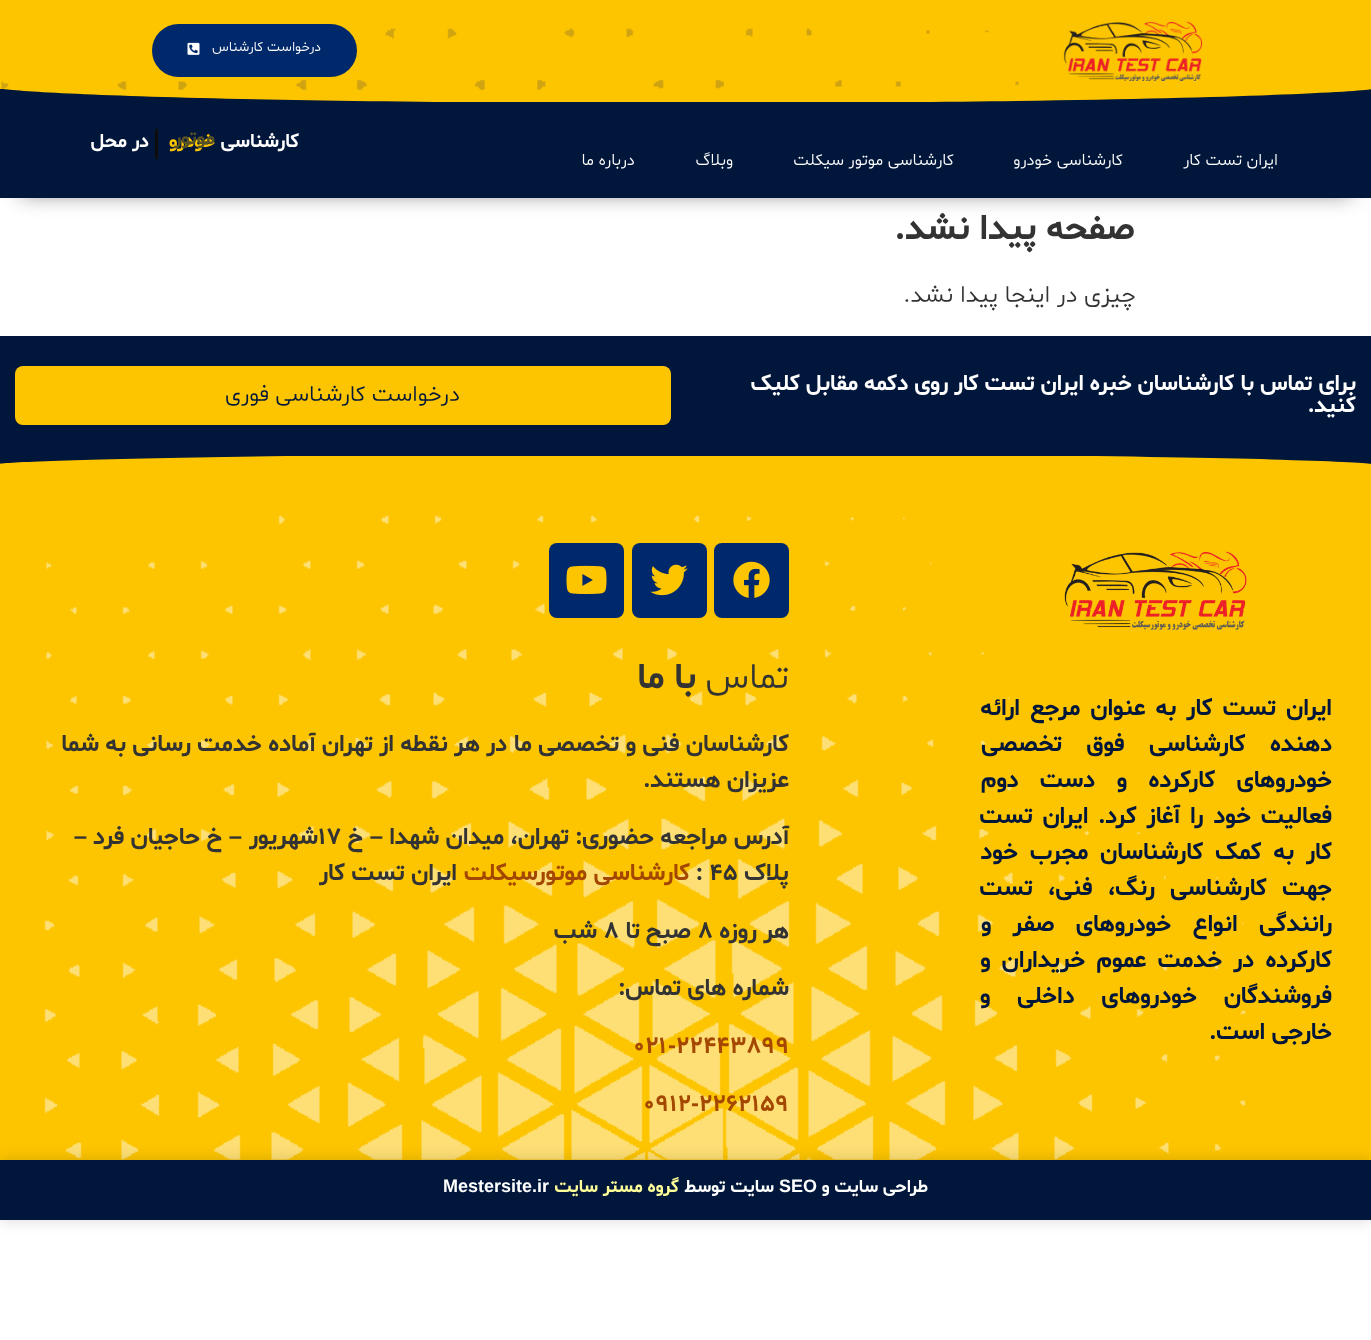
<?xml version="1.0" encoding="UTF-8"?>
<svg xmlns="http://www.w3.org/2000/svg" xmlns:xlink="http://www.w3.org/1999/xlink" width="1371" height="1340">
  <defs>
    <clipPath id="clip1"><rect y="89" width="1371" height="15" /></clipPath>
    <clipPath id="clip2"><rect y="455" width="1371" height="10" /></clipPath>
  </defs>
  <rect width="100%" height="100%" fill="#ffffff" />
  <rect width="1371" height="102" fill="#fdc500" />
  <image x="1" y="28" width="1018" height="62" xlink:href="image1.png" />
  <image x="1063" y="21" width="140" height="61" xlink:href="image2.png" />
  <rect x="152" y="24" width="205" height="53" rx="26.5" fill="#00296b" />
  <image x="187" y="42" width="13" height="13" xlink:href="image3.png" />
  <g clip-path="url(#clip1)">
    <path d="M 686 103 c -513 0 -686 -12 -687 -15 v 16 h 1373 v -15 c 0 2 -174 14 -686 14 z" fill="#00163a" />
  </g>
  <rect x="20" y="137" width="1332" height="57" fill="#000000" fill-opacity="0.5" filter="blur(10.5px)" />
  <rect y="102" width="1371" height="96" fill="#00163a" />
  <rect x="155" y="129" width="3" height="30" fill="#0d0d0d" />
  <rect y="336" width="1371" height="120" fill="#00163a" />
  <rect x="15" y="366" width="656" height="59" rx="8" fill="#fdc500" />
  <rect y="456" width="1371" height="704" fill="#fdc500" />
  <g clip-path="url(#clip2)">
    <path d="M 685 454 c 513 0 686 8 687 10 v -10 h -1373 v 10 c 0 -2 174 -10 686 -10 z" fill="#00163a" />
  </g>
  <image x="44" y="515" width="1202" height="645" xlink:href="image4.png" />
  <image x="1064" y="551" width="183" height="79" xlink:href="image5.png" />
  <rect x="714" y="543" width="75" height="75" rx="8" fill="#00296b" />
  <image x="733" y="561" width="37" height="37" xlink:href="image6.png" />
  <rect x="632" y="543" width="75" height="75" rx="8" fill="#00296b" />
  <image x="650" y="564" width="38" height="32" xlink:href="image7.png" />
  <rect x="549" y="543" width="75" height="75" rx="8" fill="#00296b" />
  <image x="566" y="565" width="41" height="29" xlink:href="image8.png" />
  <rect y="1160" width="1371" height="60" fill="#000000" fill-opacity="0.16" filter="blur(7.5px)" />
  <rect y="1160" width="1371" height="60" fill="#00163a" />
  <text x="321" y="51" style="font-family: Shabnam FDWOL; font-size: 13.75px; font-weight: 300; direction: rtl; fill: #ffffff">درخواست کارشناس</text>
  <text x="299" y="147" style="font-family: Shabnam FDWOL; font-size: 19.5px; font-weight: bold; direction: rtl; fill: #ffffff">کارشناسی</text>
  <text x="215" y="147" style="font-family: Shabnam FDWOL; font-size: 19.5px; font-weight: bold; direction: rtl; fill: #fdc500">خودرو</text>
  <text x="215" y="144" style="font-family: Shabnam FDWOL; font-size: 19.5px; font-weight: bold; direction: rtl; fill: #565226">موتور</text>
  <text x="149" y="147" style="font-family: Shabnam FDWOL; font-size: 19.5px; font-weight: bold; direction: rtl; fill: #ffffff">در محل</text>
  <text x="1278" y="165" style="font-family: Shabnam FDWOL; font-size: 16.5px; font-weight: 300; direction: rtl; fill: #ffffff">ایران تست کار</text>
  <text x="1123" y="165" style="font-family: Shabnam FDWOL; font-size: 16.5px; font-weight: 300; direction: rtl; fill: #ffffff">کارشناسی خودرو</text>
  <text x="954" y="165" style="font-family: Shabnam FDWOL; font-size: 16.5px; font-weight: 300; direction: rtl; fill: #ffffff">کارشناسی موتور سیکلت</text>
  <text x="733" y="165" style="font-family: Shabnam FDWOL; font-size: 16.5px; font-weight: 300; direction: rtl; fill: #ffffff">وبلاگ</text>
  <text x="635" y="165" style="font-family: Shabnam FDWOL; font-size: 16.5px; font-weight: 300; direction: rtl; fill: #ffffff">درباره ما</text>
  <text x="1135" y="239" style="font-family: Shabnam FDWOL; font-size: 36px; font-weight: bold; direction: rtl; fill: #333333">صفحه پیدا نشد.</text>
  <text x="1136" y="302" style="font-family: Shabnam FDWOL; font-size: 24px; font-weight: 300; direction: rtl; fill: #333333">چیزی در اینجا پیدا نشد.</text>
  <text x="1356" y="390" style="font-family: Shabnam FDWOL; font-size: 22.5px; font-weight: bold; direction: rtl; fill: #ffffff">برای تماس با کارشناسان خبره ایران تست کار روی دکمه مقابل کلیک</text>
  <text x="1356" y="412" style="font-family: Shabnam FDWOL; font-size: 22.5px; font-weight: bold; direction: rtl; fill: #ffffff">کنید.</text>
  <text x="460" y="401" style="font-family: Shabnam FDWOL; font-size: 22.5px; font-weight: 300; direction: rtl; fill: #00163a">درخواست کارشناسی فوری</text>
  <text x="1332" y="715" word-spacing="3.75" style="font-family: Shabnam FDWOL; font-size: 24px; font-weight: bold; direction: rtl; fill: #00163a">ایران تست کار به عنوان مرجع ارائه</text>
  <text x="1332" y="751" word-spacing="18" style="font-family: Shabnam FDWOL; font-size: 24px; font-weight: bold; direction: rtl; fill: #00163a">دهنده کارشناسی فوق تخصصی</text>
  <text x="1332" y="787" word-spacing="15" style="font-family: Shabnam FDWOL; font-size: 24px; font-weight: bold; direction: rtl; fill: #00163a">خودروهای کارکرده و دست دوم</text>
  <text x="1332" y="823" word-spacing="3.5" style="font-family: Shabnam FDWOL; font-size: 24px; font-weight: bold; direction: rtl; fill: #00163a">فعالیت خود را آغاز کرد. ایران تست</text>
  <text x="1332" y="859" word-spacing="5.5" style="font-family: Shabnam FDWOL; font-size: 24px; font-weight: bold; direction: rtl; fill: #00163a">کار به کمک کارشناسان مجرب خود</text>
  <text x="1332" y="895" word-spacing="9" style="font-family: Shabnam FDWOL; font-size: 24px; font-weight: bold; direction: rtl; fill: #00163a">جهت کارشناسی رنگ، فنی، تست</text>
  <text x="1332" y="931" word-spacing="15" style="font-family: Shabnam FDWOL; font-size: 24px; font-weight: bold; direction: rtl; fill: #00163a">رانندگی انواع خودروهای صفر و</text>
  <text x="1332" y="967" word-spacing="4.75" style="font-family: Shabnam FDWOL; font-size: 24px; font-weight: bold; direction: rtl; fill: #00163a">کارکرده در خدمت عموم خریداران و</text>
  <text x="1332" y="1003" word-spacing="20.5" style="font-family: Shabnam FDWOL; font-size: 24px; font-weight: bold; direction: rtl; fill: #00163a">فروشندگان خودروهای داخلی و</text>
  <text x="1332" y="1039" style="font-family: Shabnam FDWOL; font-size: 24px; font-weight: bold; direction: rtl; fill: #00163a">خارجی است.</text>
  <text x="789" y="688" style="font-family: Shabnam FDWOL; font-size: 36px; font-weight: 300; direction: rtl; fill: #333333">تماس</text>
  <text x="696" y="688" style="font-family: Shabnam FDWOL; font-size: 36px; font-weight: bold; direction: rtl; fill: #333333">با ما</text>
  <text x="789" y="751" style="font-family: Shabnam FDWOL; font-size: 24px; font-weight: bold; direction: rtl; fill: #333333">کارشناسان فنی و تخصصی ما در هر نقطه از تهران آماده خدمت رسانی به شما</text>
  <text x="789" y="787" style="font-family: Shabnam FDWOL; font-size: 24px; font-weight: bold; direction: rtl; fill: #333333">عزیزان هستند.</text>
  <text x="789" y="844" style="font-family: Shabnam FDWOL; font-size: 24px; font-weight: bold; direction: rtl; fill: #333333">آدرس مراجعه حضوری: تهران،</text>
  <text x="504" y="844" style="font-family: Shabnam FDWOL; font-size: 24px; font-weight: bold; direction: rtl; fill: #333333">میدان شهدا</text>
  <text x="383" y="844" style="font-family: Liberation Sans; font-size: 24px; font-weight: bold; direction: rtl; fill: #333333">–</text>
  <text x="363" y="844" style="font-family: Shabnam FDWOL; font-size: 24px; font-weight: bold; direction: rtl; fill: #333333">خ</text>
  <text x="318" y="844" style="font-family: Shabnam FDWOL; font-size: 24px; font-weight: bold; fill: #333333">۱۷</text>
  <text x="318" y="844" style="font-family: Shabnam FDWOL; font-size: 24px; font-weight: bold; direction: rtl; fill: #333333">شهریور</text>
  <text x="242" y="844" style="font-family: Liberation Sans; font-size: 24px; font-weight: bold; direction: rtl; fill: #333333">–</text>
  <text x="222" y="844" style="font-family: Shabnam FDWOL; font-size: 24px; font-weight: bold; direction: rtl; fill: #333333">خ حاجیان فرد</text>
  <text x="87" y="844" style="font-family: Liberation Sans; font-size: 24px; font-weight: bold; direction: rtl; fill: #333333">–</text>
  <text x="789" y="880" style="font-family: Shabnam FDWOL; font-size: 24px; font-weight: bold; direction: rtl; fill: #333333">پلاک</text>
  <text x="696" y="880" style="font-family: Shabnam FDWOL; font-size: 24px; font-weight: bold; fill: #333333">: 45</text>
  <text x="690" y="880" style="font-family: Shabnam FDWOL; font-size: 24px; font-weight: bold; direction: rtl; fill: #a44700">کارشناسی موتورسیکلت</text>
  <text x="457" y="880" style="font-family: Shabnam FDWOL; font-size: 24px; font-weight: bold; direction: rtl; fill: #333333">ایران تست کار</text>
  <text x="789" y="938" style="font-family: Shabnam FDWOL; font-size: 24px; font-weight: bold; direction: rtl; fill: #333333">هر روزه</text>
  <text x="698" y="938" style="font-family: Shabnam FDWOL; font-size: 24px; font-weight: bold; fill: #333333">8</text>
  <text x="691" y="938" style="font-family: Shabnam FDWOL; font-size: 24px; font-weight: bold; direction: rtl; fill: #333333">صبح</text>
  <text x="640" y="938" style="font-family: Shabnam FDWOL; font-size: 24px; font-weight: bold; direction: rtl; fill: #333333">تا</text>
  <text x="604" y="938" style="font-family: Shabnam FDWOL; font-size: 24px; font-weight: bold; fill: #333333">8</text>
  <text x="597" y="938" style="font-family: Shabnam FDWOL; font-size: 24px; font-weight: bold; direction: rtl; fill: #333333">شب</text>
  <text x="789" y="995" style="font-family: Shabnam FDWOL; font-size: 24px; font-weight: bold; direction: rtl; fill: #333333">شماره های تماس:</text>
  <text x="676" y="1053" style="font-family: Shabnam FDWOL; font-size: 24px; font-weight: bold; fill: #a44700">22443899</text>
  <text x="668" y="1053" style="font-family: Liberation Sans; font-size: 24px; font-weight: bold; fill: #a44700">-</text>
  <text x="633" y="1053" style="font-family: Shabnam FDWOL; font-size: 24px; font-weight: bold; fill: #a44700">021</text>
  <text x="699" y="1111" style="font-family: Shabnam FDWOL; font-size: 24px; font-weight: bold; fill: #a44700">2262159</text>
  <text x="691" y="1111" style="font-family: Liberation Sans; font-size: 24px; font-weight: bold; fill: #a44700">-</text>
  <text x="643" y="1111" style="font-family: Shabnam FDWOL; font-size: 24px; font-weight: bold; fill: #a44700">0912</text>
  <text x="928" y="1192" style="font-family: Shabnam FDWOL; font-size: 18px; font-weight: bold; direction: rtl; fill: #ffffff">طراحی سایت و</text>
  <text x="779" y="1192" style="font-family: Liberation Sans; font-size: 18px; font-weight: bold; fill: #ffffff">SEO</text>
  <text x="774" y="1192" style="font-family: Shabnam FDWOL; font-size: 18px; font-weight: bold; direction: rtl; fill: #ffffff">سایت توسط</text>
  <text x="679" y="1192" style="font-family: Shabnam FDWOL; font-size: 18px; font-weight: bold; direction: rtl; fill: #ffff99">گروه مستر سایت</text>
  <text x="443" y="1192" style="font-family: Liberation Sans; font-size: 18px; font-weight: bold; fill: #ffffff">Mestersite.ir</text>
</svg>
